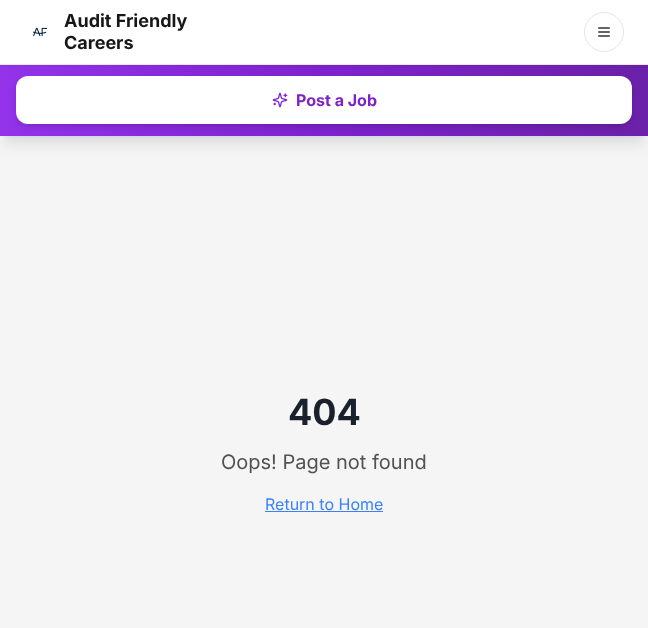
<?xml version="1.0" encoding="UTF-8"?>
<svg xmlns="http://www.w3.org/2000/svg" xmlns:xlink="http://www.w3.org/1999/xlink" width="648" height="628">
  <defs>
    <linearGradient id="g1" gradientUnits="userSpaceOnUse" x1="0" y1="100" x2="648" y2="100"><stop offset="0" stop-color="#9333ea" /><stop offset="0.5" stop-color="#7e22ce" /><stop offset="1" stop-color="#6b21a8" /></linearGradient>
  </defs>
  <rect width="100%" height="100%" fill="#f8f9ff" />
  <rect y="140" width="648" height="488" fill="#f5f5f5" />
  <rect x="4" y="72" width="640" height="64" fill="#000000" fill-opacity="0.1" filter="blur(3px)" />
  <rect x="3" y="77" width="642" height="66" fill="#000000" fill-opacity="0.1" filter="blur(7.5px)" />
  <rect y="65" width="648" height="71" fill="url(#g1)" />
  <rect y="1" width="648" height="65" fill="#000000" fill-opacity="0.05" filter="blur(1px)" />
  <rect width="648" height="64" fill="#ffffff" />
  <rect y="64" width="648" height="1" fill="#e8e8e8" />
  <image x="33" y="27" width="15" height="9" xlink:href="image1.png" />
  <circle cx="604" cy="32" r="19.5" fill="none" stroke="#e5e5e5" />
  <image x="598" y="27" width="12" height="10" xlink:href="image2.png" />
  <rect x="18" y="80" width="612" height="44" rx="10" fill="#000000" fill-opacity="0.1" filter="blur(2px)" />
  <rect x="17" y="81" width="614" height="46" rx="11" fill="#000000" fill-opacity="0.1" filter="blur(3px)" />
  <rect x="16" y="76" width="616" height="48" rx="12" fill="#ffffff" />
  <image x="272" y="92" width="16" height="16" xlink:href="image3.png" />
  <rect x="265" y="511" width="118" height="1" fill="#3b82f6" />
  <text x="64" y="27" style="font-family: Inter; font-size: 18px; font-weight: bold; fill: #171717">Audit Friendly</text>
  <text x="64" y="49" style="font-family: Inter; font-size: 18px; font-weight: bold; fill: #171717">Careers</text>
  <text x="296" y="106" style="font-family: Inter; font-size: 16px; font-weight: bold; fill: #7e22ce">Post a Job</text>
  <text x="288" y="425" style="font-family: Inter; font-size: 36px; font-weight: bold; fill: #1a202c">404</text>
  <text x="221" y="469" style="font-family: Inter; font-size: 20px; fill: #525252">Oops! Page not found</text>
  <text x="265" y="510" style="font-family: Inter; font-size: 16px; fill: #3b82f6">Return to Home</text>
</svg>
